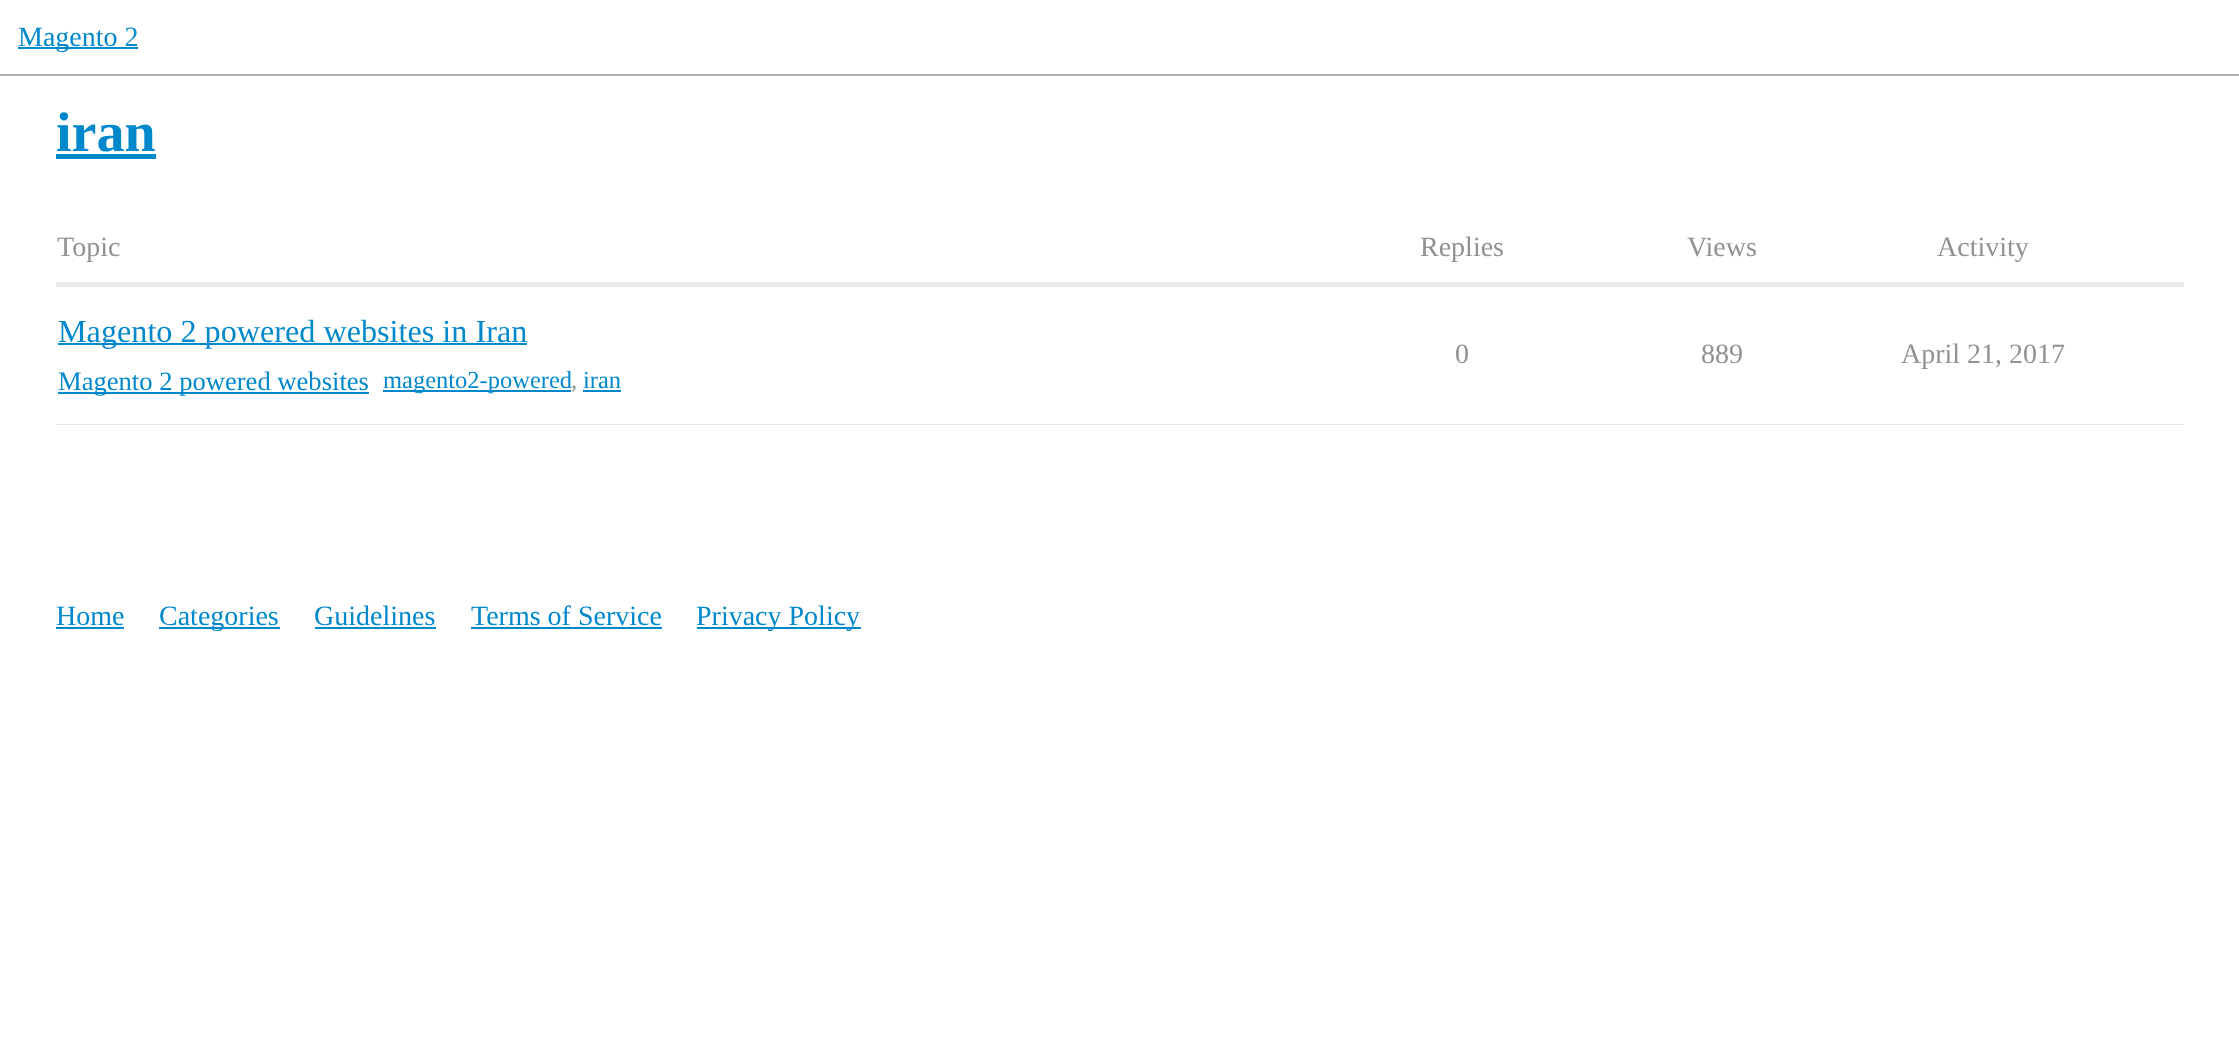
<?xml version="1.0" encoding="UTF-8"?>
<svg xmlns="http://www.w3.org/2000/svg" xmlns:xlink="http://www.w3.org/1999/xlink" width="2239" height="1047">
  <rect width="100%" height="100%" fill="#ffffff" />
  <rect y="74" width="2239" height="2" fill="#afafaf" />
  <rect x="18" y="47" width="120" height="2" fill="#0088cc" />
  <rect x="56" y="154" width="100" height="5" fill="#0088cc" />
  <rect x="56" y="282" width="2128" height="5" fill="#e9e9e9" />
  <rect x="56" y="424" width="2128" height="1" fill="#e9e9e9" />
  <rect x="58" y="343" width="469" height="2" fill="#0088cc" />
  <rect x="58" y="392" width="311" height="2" fill="#0088cc" />
  <rect x="383" y="390" width="188" height="2" fill="#0088cc" />
  <rect x="583" y="390" width="38" height="2" fill="#0088cc" />
  <rect x="56" y="627" width="68" height="2" fill="#0088cc" />
  <rect x="159" y="627" width="121" height="2" fill="#0088cc" />
  <rect x="315" y="627" width="121" height="2" fill="#0088cc" />
  <rect x="471" y="627" width="191" height="2" fill="#0088cc" />
  <rect x="697" y="627" width="164" height="2" fill="#0088cc" />
  <text x="18" y="46" style="font-family: Liberation Serif; font-size: 28px; fill: #0088cc">Magento 2</text>
  <text x="56" y="151" style="font-family: Liberation Serif; font-size: 56px; font-weight: bold; fill: #0088cc">iran</text>
  <text x="57" y="256" style="font-family: Liberation Serif; font-size: 28px; fill: #919191">Topic</text>
  <text x="1420" y="256" style="font-family: Liberation Serif; font-size: 28px; fill: #919191">Replies</text>
  <text x="1687" y="256" style="font-family: Liberation Serif; font-size: 28px; fill: #919191">Views</text>
  <text x="1937" y="256" style="font-family: Liberation Serif; font-size: 28px; fill: #919191">Activity</text>
  <text x="58" y="342" style="font-family: Liberation Serif; font-size: 32.2px; fill: #0088cc">Magento 2 powered websites in Iran</text>
  <text x="58" y="390" style="font-family: Liberation Serif; font-size: 26.6px; fill: #0088cc">Magento 2 powered websites</text>
  <text x="383" y="388" style="font-family: Liberation Serif; font-size: 24.5px; fill: #0088cc">magento2-powered</text>
  <text x="571" y="388" style="font-family: Liberation Serif; font-size: 24.5px; fill: #919191">,</text>
  <text x="583" y="388" style="font-family: Liberation Serif; font-size: 24.5px; fill: #0088cc">iran</text>
  <text x="1455" y="363" style="font-family: Liberation Serif; font-size: 28px; fill: #919191">0</text>
  <text x="1701" y="363" style="font-family: Liberation Serif; font-size: 28px; fill: #919191">889</text>
  <text x="1901" y="363" style="font-family: Liberation Serif; font-size: 28px; fill: #919191">April 21, 2017</text>
  <text x="56" y="625" style="font-family: Liberation Serif; font-size: 28px; fill: #0088cc">Home</text>
  <text x="159" y="625" style="font-family: Liberation Serif; font-size: 28px; fill: #0088cc">Categories</text>
  <text x="314" y="625" style="font-family: Liberation Serif; font-size: 28px; fill: #0088cc">Guidelines</text>
  <text x="471" y="625" style="font-family: Liberation Serif; font-size: 28px; fill: #0088cc">Terms of Service</text>
  <text x="696" y="625" style="font-family: Liberation Serif; font-size: 28px; fill: #0088cc">Privacy Policy</text>
</svg>
